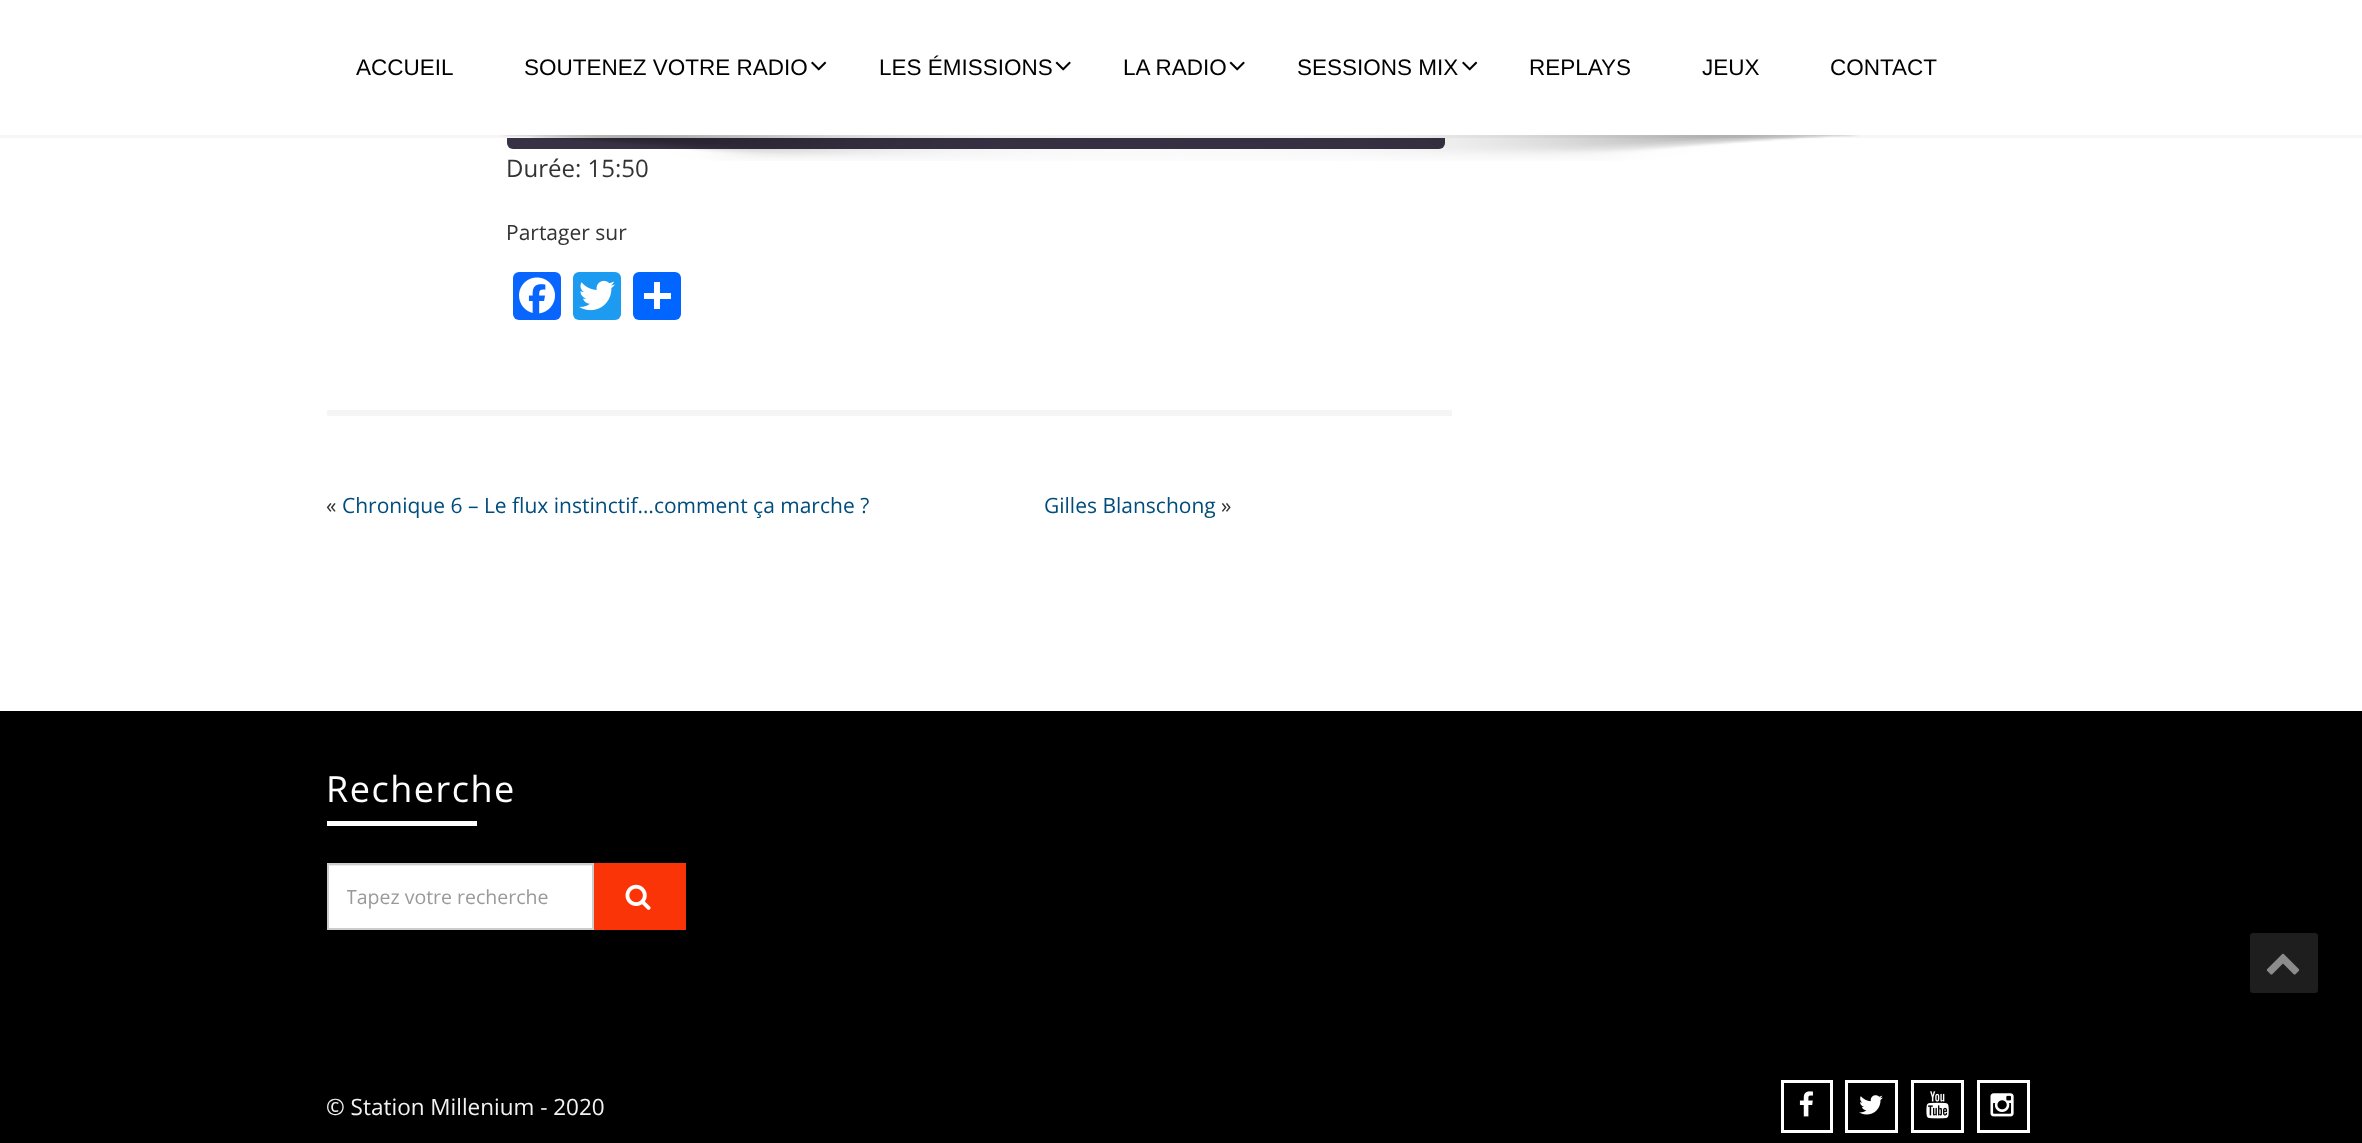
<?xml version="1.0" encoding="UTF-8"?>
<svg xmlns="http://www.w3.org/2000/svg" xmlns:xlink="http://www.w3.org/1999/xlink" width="2362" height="1143">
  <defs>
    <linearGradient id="g1" gradientUnits="userSpaceOnUse" x1="976" y1="151" x2="975" y2="-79"><stop offset="0.01" stop-color="#383344" /><stop offset="0.78" stop-color="#24212c" /></linearGradient>
    <clipPath id="clip1"><rect x="347" y="884" width="228" height="27" /></clipPath>
  </defs>
  <rect width="100%" height="100%" fill="#ffffff" />
  <rect x="507" y="-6" width="938" height="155" rx="6" fill="url(#g1)" />
  <rect x="507" width="938" height="135" fill="#ffffff" />
  <rect y="135" width="2362" height="3" fill="#f7f5f5" />
  <image x="811" y="61" width="16" height="10" xlink:href="image1.png" />
  <image x="1055" y="61" width="16" height="10" xlink:href="image2.png" />
  <image x="1229" y="61" width="16" height="10" xlink:href="image2.png" />
  <image x="1462" y="61" width="16" height="10" xlink:href="image1.png" />
  <rect x="513" y="272" width="48" height="48" rx="6" fill="#0866ff" />
  <image x="519" y="277" width="36" height="37" xlink:href="image4.png" />
  <rect x="573" y="272" width="48" height="48" rx="6" fill="#1d9bf0" />
  <image x="579" y="280" width="36" height="31" xlink:href="image5.png" />
  <rect x="633" y="272" width="48" height="48" rx="6" fill="#0166ff" />
  <rect x="654" y="282" width="6" height="27" fill="#ffffff" />
  <rect x="644" y="293" width="27" height="6" fill="#ffffff" />
  <rect x="327" y="410" width="1125" height="6" fill="#f5f5f5" />
  <rect y="711" width="2362" height="432" fill="#000000" />
  <rect x="327" y="821" width="150" height="5" fill="#ffffff" />
  <rect x="329" y="866" width="263" height="62" fill="#ffffff" />
  <rect x="329" y="865" width="264" height="1" fill="#ececec" />
  <rect x="328" y="864" width="265" height="65" fill="none" stroke="#cccccc" stroke-width="2" />
  <rect x="594" y="863" width="92" height="67" fill="#fa3406" />
  <image x="625" y="884" width="26" height="26" xlink:href="image6.png" />
  <rect x="1782.5" y="1081.5" width="49" height="50" fill="none" stroke="#ffffff" stroke-width="3" />
  <image x="1799" y="1091" width="14" height="26" xlink:href="image7.png" />
  <rect x="1846.5" y="1081.5" width="50" height="50" fill="none" stroke="#ffffff" stroke-width="3" />
  <image x="1859" y="1095" width="24" height="20" xlink:href="image8.png" />
  <rect x="1912.5" y="1081.5" width="50" height="50" fill="none" stroke="#ffffff" stroke-width="3" />
  <image x="1926" y="1091" width="23" height="28" xlink:href="image9.png" />
  <rect x="1978.5" y="1081.5" width="50" height="50" fill="none" stroke="#ffffff" stroke-width="3" />
  <image x="1990" y="1093" width="24" height="24" xlink:href="image10.png" />
  <rect x="2250" y="933" width="68" height="60" rx="3" fill="#1e1e1e" />
  <image x="2266" y="953" width="34" height="22" xlink:href="image11.png" />
  <text x="356" y="75" style="font-family: Liberation Sans; font-size: 22.5px; fill: #000000">ACCUEIL</text>
  <text x="524" y="75" style="font-family: Liberation Sans; font-size: 22.5px; fill: #000000">SOUTENEZ VOTRE RADIO</text>
  <text x="879" y="75" style="font-family: Liberation Sans; font-size: 22.5px; fill: #000000">LES ÉMISSIONS</text>
  <text x="1123" y="75" style="font-family: Liberation Sans; font-size: 22.5px; fill: #000000">LA RADIO</text>
  <text x="1297" y="75" style="font-family: Liberation Sans; font-size: 22.5px; fill: #000000">SESSIONS MIX</text>
  <text x="1529" y="75" style="font-family: Liberation Sans; font-size: 22.5px; fill: #000000">REPLAYS</text>
  <text x="1702" y="75" style="font-family: Liberation Sans; font-size: 22.5px; fill: #000000">JEUX</text>
  <text x="1830" y="75" style="font-family: Liberation Sans; font-size: 22.5px; fill: #000000">CONTACT</text>
  <text x="506" y="177" style="font-family: Open Sans; font-size: 24px; fill: #333333">Durée: 15:50</text>
  <image x="500" y="135" width="1359" height="26" xlink:href="image3.png" />
  <text x="506" y="240" style="font-family: Open Sans; font-size: 21px; fill: #333333">Partager sur</text>
  <text x="326" y="513" style="font-family: Open Sans; font-size: 21px; fill: #333333">«</text>
  <text x="342" y="513" style="font-family: Open Sans; font-size: 21px; fill: #004c7d">Chronique 6 – Le flux instinctif…comment ça marche ?</text>
  <text x="1044" y="513" style="font-family: Open Sans; font-size: 21px; fill: #004c7d">Gilles Blanschong</text>
  <text x="1221" y="513" style="font-family: Open Sans; font-size: 21px; fill: #333333">»</text>
  <text x="326" y="802" style="font-family: Open Sans; font-size: 36px; letter-spacing: 1.5px; fill: #ffffff">Recherche</text>
  <g clip-path="url(#clip1)">
    <text x="346" y="904" style="font-family: Open Sans; font-size: 19.5px; fill: #999999">Tapez votre recherche</text>
  </g>
  <text x="326" y="1115" style="font-family: Open Sans; font-size: 22.5px; fill: #f2f2f2">© Station Millenium - 2020</text>
</svg>
